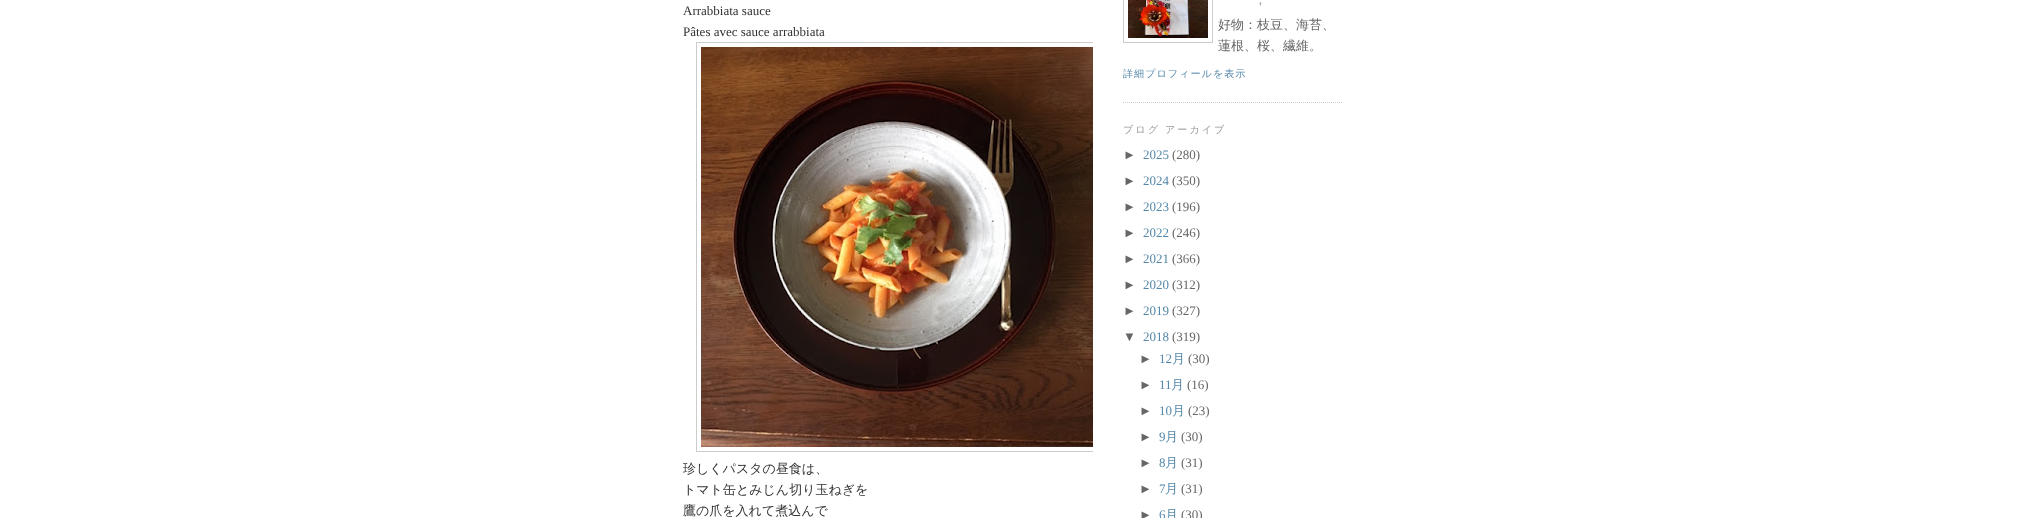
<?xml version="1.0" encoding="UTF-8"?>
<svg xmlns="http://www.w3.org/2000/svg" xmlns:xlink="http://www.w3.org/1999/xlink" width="2026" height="518">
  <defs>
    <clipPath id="clip1"><rect x="683" width="410" height="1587" /></clipPath>
  </defs>
  <rect width="100%" height="100%" fill="#ffffff" />
  <g clip-path="url(#clip1)">
    <rect x="696.5" y="42.5" width="409" height="409" fill="none" stroke="#cccccc" />
  </g>
  <image x="701" y="47" width="392" height="400" xlink:href="image1.png" />
  <path d="M 1123 102.5 h 220" fill="none" stroke="#cccccc" stroke-dasharray="1 1" />
  <rect x="1123.5" y="-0.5" width="89" height="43" fill="none" stroke="#cccccc" />
  <image x="1128" y="0" width="80" height="38" xlink:href="image2.png" />
  <text x="683" y="15" style="font-family: Liberation Serif; font-size: 13px; fill: #333333">Arrabbiata sauce</text>
  <text x="683" y="36" style="font-family: Liberation Serif; font-size: 13px; fill: #333333">Pâtes avec sauce arrabbiata</text>
  <text x="683" y="473" style="font-family: WenQuanYi Zen Hei; font-size: 13px; font-weight: 500; fill: #333333">珍しくパスタの昼食は、</text>
  <text x="683" y="494" style="font-family: WenQuanYi Zen Hei; font-size: 13px; font-weight: 500; fill: #333333">トマト缶とみじん切り玉ねぎを</text>
  <text x="683" y="515" style="font-family: WenQuanYi Zen Hei; font-size: 13px; font-weight: 500; fill: #333333">鷹の爪を入れて煮込んで</text>
  <text x="1259" y="4" style="font-family: Liberation Sans; font-size: 10.1px; font-weight: bold; letter-spacing: 1px; fill: #999999">,</text>
  <text x="1218" y="29" style="font-family: WenQuanYi Zen Hei; font-size: 13px; font-weight: 500; fill: #666666">好物：枝豆、海苔、</text>
  <text x="1218" y="50" style="font-family: WenQuanYi Zen Hei; font-size: 13px; font-weight: 500; fill: #666666">蓮根、桜、繊維。</text>
  <text x="1123" y="77" style="font-family: WenQuanYi Zen Hei; font-size: 10.1px; font-weight: 500; letter-spacing: 1px; fill: #5588aa">詳細プロフィールを表示</text>
  <text x="1123" y="133" style="font-family: WenQuanYi Zen Hei; font-size: 10.1px; font-weight: 500; letter-spacing: 2px; fill: #999999">ブログ アーカイブ</text>
  <text x="1123" y="159" style="font-family: Liberation Sans; font-size: 13px; fill: #666666">►</text>
  <text x="1143" y="159" style="font-family: Liberation Serif; font-size: 13px; fill: #5588aa">2025</text>
  <text x="1172" y="159" style="font-family: Liberation Serif; font-size: 13px; fill: #666666">(280)</text>
  <text x="1123" y="185" style="font-family: Liberation Sans; font-size: 13px; fill: #666666">►</text>
  <text x="1143" y="185" style="font-family: Liberation Serif; font-size: 13px; fill: #5588aa">2024</text>
  <text x="1172" y="185" style="font-family: Liberation Serif; font-size: 13px; fill: #666666">(350)</text>
  <text x="1123" y="211" style="font-family: Liberation Sans; font-size: 13px; fill: #666666">►</text>
  <text x="1143" y="211" style="font-family: Liberation Serif; font-size: 13px; fill: #5588aa">2023</text>
  <text x="1172" y="211" style="font-family: Liberation Serif; font-size: 13px; fill: #666666">(196)</text>
  <text x="1123" y="237" style="font-family: Liberation Sans; font-size: 13px; fill: #666666">►</text>
  <text x="1143" y="237" style="font-family: Liberation Serif; font-size: 13px; fill: #5588aa">2022</text>
  <text x="1172" y="237" style="font-family: Liberation Serif; font-size: 13px; fill: #666666">(246)</text>
  <text x="1123" y="263" style="font-family: Liberation Sans; font-size: 13px; fill: #666666">►</text>
  <text x="1143" y="263" style="font-family: Liberation Serif; font-size: 13px; fill: #5588aa">2021</text>
  <text x="1172" y="263" style="font-family: Liberation Serif; font-size: 13px; fill: #666666">(366)</text>
  <text x="1123" y="289" style="font-family: Liberation Sans; font-size: 13px; fill: #666666">►</text>
  <text x="1143" y="289" style="font-family: Liberation Serif; font-size: 13px; fill: #5588aa">2020</text>
  <text x="1172" y="289" style="font-family: Liberation Serif; font-size: 13px; fill: #666666">(312)</text>
  <text x="1123" y="315" style="font-family: Liberation Sans; font-size: 13px; fill: #666666">►</text>
  <text x="1143" y="315" style="font-family: Liberation Serif; font-size: 13px; fill: #5588aa">2019</text>
  <text x="1172" y="315" style="font-family: Liberation Serif; font-size: 13px; fill: #666666">(327)</text>
  <text x="1123" y="341" style="font-family: Liberation Sans; font-size: 13px; fill: #666666">▼</text>
  <text x="1143" y="341" style="font-family: Liberation Serif; font-size: 13px; fill: #5588aa">2018</text>
  <text x="1172" y="341" style="font-family: Liberation Serif; font-size: 13px; fill: #666666">(319)</text>
  <text x="1139" y="363" style="font-family: Liberation Sans; font-size: 13px; fill: #666666">►</text>
  <text x="1159" y="363" style="font-family: Liberation Serif; font-size: 13px; fill: #5588aa">12</text>
  <text x="1172" y="363" style="font-family: WenQuanYi Zen Hei; font-size: 13px; font-weight: 500; fill: #5588aa">月</text>
  <text x="1188" y="363" style="font-family: Liberation Serif; font-size: 13px; fill: #666666">(30)</text>
  <text x="1139" y="389" style="font-family: Liberation Sans; font-size: 13px; fill: #666666">►</text>
  <text x="1159" y="389" style="font-family: Liberation Serif; font-size: 13px; fill: #5588aa">11</text>
  <text x="1171" y="389" style="font-family: WenQuanYi Zen Hei; font-size: 13px; font-weight: 500; fill: #5588aa">月</text>
  <text x="1187" y="389" style="font-family: Liberation Serif; font-size: 13px; fill: #666666">(16)</text>
  <text x="1139" y="415" style="font-family: Liberation Sans; font-size: 13px; fill: #666666">►</text>
  <text x="1159" y="415" style="font-family: Liberation Serif; font-size: 13px; fill: #5588aa">10</text>
  <text x="1172" y="415" style="font-family: WenQuanYi Zen Hei; font-size: 13px; font-weight: 500; fill: #5588aa">月</text>
  <text x="1188" y="415" style="font-family: Liberation Serif; font-size: 13px; fill: #666666">(23)</text>
  <text x="1139" y="441" style="font-family: Liberation Sans; font-size: 13px; fill: #666666">►</text>
  <text x="1159" y="441" style="font-family: Liberation Serif; font-size: 13px; fill: #5588aa">9</text>
  <text x="1165" y="441" style="font-family: WenQuanYi Zen Hei; font-size: 13px; font-weight: 500; fill: #5588aa">月</text>
  <text x="1181" y="441" style="font-family: Liberation Serif; font-size: 13px; fill: #666666">(30)</text>
  <text x="1139" y="467" style="font-family: Liberation Sans; font-size: 13px; fill: #666666">►</text>
  <text x="1159" y="467" style="font-family: Liberation Serif; font-size: 13px; fill: #5588aa">8</text>
  <text x="1165" y="467" style="font-family: WenQuanYi Zen Hei; font-size: 13px; font-weight: 500; fill: #5588aa">月</text>
  <text x="1181" y="467" style="font-family: Liberation Serif; font-size: 13px; fill: #666666">(31)</text>
  <text x="1139" y="493" style="font-family: Liberation Sans; font-size: 13px; fill: #666666">►</text>
  <text x="1159" y="493" style="font-family: Liberation Serif; font-size: 13px; fill: #5588aa">7</text>
  <text x="1165" y="493" style="font-family: WenQuanYi Zen Hei; font-size: 13px; font-weight: 500; fill: #5588aa">月</text>
  <text x="1181" y="493" style="font-family: Liberation Serif; font-size: 13px; fill: #666666">(31)</text>
  <text x="1139" y="519" style="font-family: Liberation Sans; font-size: 13px; fill: #666666">►</text>
  <text x="1159" y="519" style="font-family: Liberation Serif; font-size: 13px; fill: #5588aa">6</text>
  <text x="1165" y="519" style="font-family: WenQuanYi Zen Hei; font-size: 13px; font-weight: 500; fill: #5588aa">月</text>
  <text x="1181" y="519" style="font-family: Liberation Serif; font-size: 13px; fill: #666666">(30)</text>
</svg>
